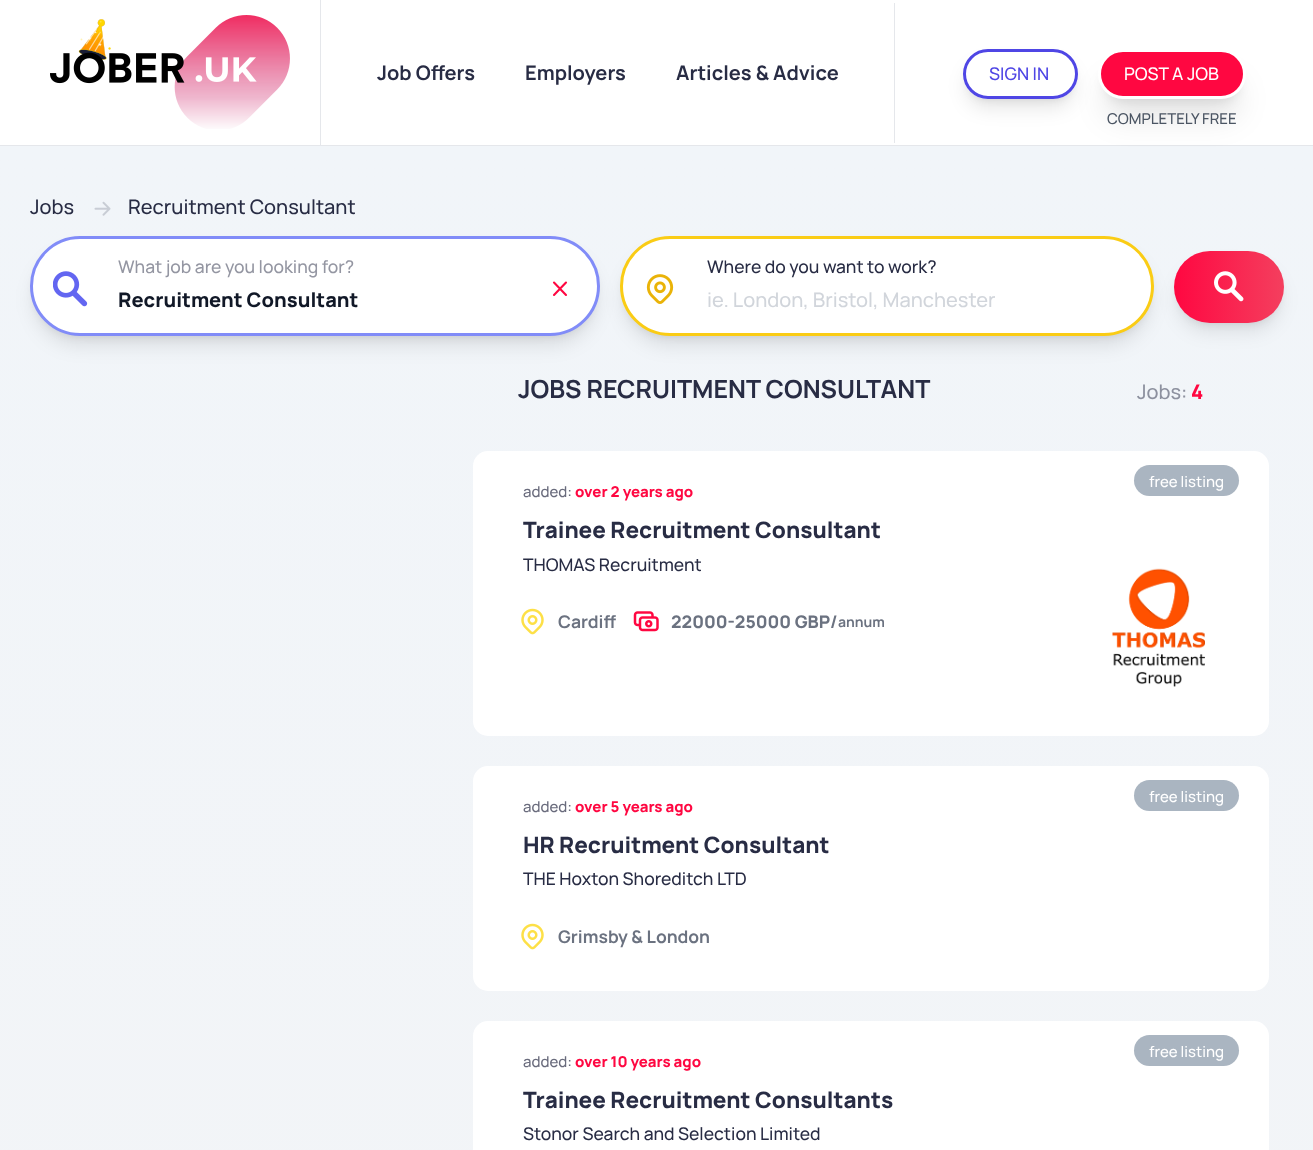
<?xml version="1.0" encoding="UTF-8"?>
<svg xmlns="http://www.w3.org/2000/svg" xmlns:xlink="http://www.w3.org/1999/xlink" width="1313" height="1150">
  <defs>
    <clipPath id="clip1"><path d="M 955 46 h 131 v 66 h -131 z m 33 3 h 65 c 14 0 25 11 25 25 c 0 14 -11 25 -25 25 h -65 c -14 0 -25 -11 -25 -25 c 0 -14 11 -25 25 -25 z" clip-rule="evenodd" /></clipPath>
    <clipPath id="clip2"><path d="M 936 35 h 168 v 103 h -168 z m 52 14 h 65 c 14 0 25 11 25 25 c 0 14 -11 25 -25 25 h -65 c -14 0 -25 -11 -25 -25 c 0 -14 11 -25 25 -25 z" clip-rule="evenodd" /></clipPath>
    <linearGradient id="g1" gradientUnits="userSpaceOnUse" x1="657" y1="146" x2="657" y2="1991"><stop offset="0" stop-color="#f1f5f9" /><stop offset="1" stop-color="#f3f4f6" /></linearGradient>
    <linearGradient id="g2" gradientUnits="userSpaceOnUse" x1="1174" y1="287" x2="1284" y2="287"><stop offset="0" stop-color="#ff0741" /><stop offset="1" stop-color="#f43f5e" /></linearGradient>
  </defs>
  <rect width="100%" height="100%" fill="#ffffff" />
  <rect y="145" width="1313" height="1" fill="#e5e7eb" />
  <rect x="320" width="1" height="145" fill="#e5e7eb" />
  <image x="50" y="15" width="240" height="114" xlink:href="image1.png" />
  <rect x="894" y="3" width="1" height="140" fill="#e5e7eb" />
  <g clip-path="url(#clip1)">
    <rect x="968" y="59" width="105" height="40" rx="20" fill="#000000" fill-opacity="0.1" filter="blur(4px)" />
  </g>
  <g clip-path="url(#clip2)">
    <rect x="966" y="65" width="108" height="43" rx="21.5" fill="#000000" fill-opacity="0.1" filter="blur(9.5px)" />
  </g>
  <rect x="964.5" y="50.5" width="112" height="47" rx="23.5" fill="none" stroke="#4f46e5" stroke-width="3" />
  <rect x="1105" y="66" width="134" height="35" rx="17.5" fill="#000000" fill-opacity="0.1" filter="blur(6px)" />
  <rect y="146" width="1313" height="1004" fill="url(#g1)" />
  <rect x="1104" y="80" width="136" height="38" rx="19" fill="#000000" fill-opacity="0.1" filter="blur(15.5px)" />
  <rect x="1099.5" y="50.5" width="145" height="47" rx="23.5" fill="#ff0741" stroke="#ffffff" stroke-width="3" />
  <image x="94" y="201" width="17" height="15" xlink:href="image2.png" />
  <rect x="35" y="246" width="560" height="90" rx="45" fill="#000000" fill-opacity="0.1" filter="blur(4px)" />
  <rect x="34" y="253" width="562" height="92" rx="46" fill="#000000" fill-opacity="0.1" filter="blur(9.5px)" />
  <rect x="31.5" y="237.5" width="567" height="97" rx="48.5" fill="#ffffff" stroke="#818cf8" stroke-width="3" />
  <image x="53" y="271" width="35" height="36" xlink:href="image3.png" />
  <path d="M 554 295 l 12 -12.5 m -12 0 l 12 12.5" fill="none" stroke="#ff0741" stroke-width="2.1" stroke-linecap="round" stroke-linejoin="round" />
  <rect x="625" y="246" width="524" height="90" rx="45" fill="#000000" fill-opacity="0.1" filter="blur(4px)" />
  <rect x="1179" y="261" width="100" height="62" rx="31" fill="#000000" fill-opacity="0.1" filter="blur(4px)" />
  <rect x="1178" y="268" width="102" height="63" rx="31.5" fill="#000000" fill-opacity="0.1" filter="blur(9.5px)" />
  <rect x="1174" y="251" width="110" height="72" rx="36" fill="url(#g2)" />
  <rect x="624" y="253" width="526" height="92" rx="46" fill="#000000" fill-opacity="0.1" filter="blur(9.5px)" />
  <rect x="621.5" y="237.5" width="531" height="97" rx="48.5" fill="#ffffff" stroke="#facc15" stroke-width="3" />
  <image x="646" y="274" width="28" height="30" xlink:href="image4.png" />
  <image x="1214" y="271" width="30" height="31" xlink:href="image5.png" />
  <rect x="473" y="451" width="796" height="285" rx="15" fill="#ffffff" />
  <rect x="1134" y="465" width="105" height="31" rx="15.5" fill="#aab5c1" />
  <image x="521" y="608" width="23" height="27" xlink:href="image6.png" />
  <image x="633" y="611" width="26" height="21" xlink:href="image7.png" />
  <image x="1112" y="568" width="93" height="119" xlink:href="image8.png" />
  <rect x="473" y="766" width="796" height="225" rx="15" fill="#ffffff" />
  <rect x="1134" y="780" width="105" height="31" rx="15.5" fill="#aab5c1" />
  <image x="521" y="923" width="23" height="27" xlink:href="image6.png" />
  <rect x="473" y="1021" width="796" height="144" rx="15" fill="#ffffff" />
  <rect x="1134" y="1035" width="105" height="31" rx="15.5" fill="#aab5c1" />
  <text x="377" y="80" style="font-family: Manrope; font-size: 20px; font-weight: bold; fill: #282c44">Job Offers</text>
  <text x="525" y="80" style="font-family: Manrope; font-size: 20px; font-weight: bold; fill: #282c44">Employers</text>
  <text x="676" y="80" style="font-family: Manrope; font-size: 20px; font-weight: bold; fill: #282c44">Articles &amp; Advice</text>
  <text x="989" y="80" style="font-family: Manrope; font-size: 17.5px; font-weight: 500; fill: #4f46e5">SIGN IN</text>
  <text x="1124" y="80" style="font-family: Manrope; font-size: 17.5px; font-weight: 500; fill: #ffffff">POST A JOB</text>
  <text x="1107" y="124" style="font-family: Manrope; font-size: 15px; font-weight: 500; fill: #4b5563">COMPLETELY FREE</text>
  <text x="30" y="214" style="font-family: Manrope; font-size: 20px; font-weight: 500; fill: #282c44">Jobs</text>
  <text x="128" y="214" style="font-family: Manrope; font-size: 20px; font-weight: 500; fill: #282c44">Recruitment Consultant</text>
  <text x="118" y="273" style="font-family: Manrope; font-size: 17.5px; font-weight: 500; fill: #9496a2">What job are you looking for?</text>
  <text x="118" y="307" style="font-family: Manrope; font-size: 20px; font-weight: 800; fill: #111827">Recruitment Consultant</text>
  <text x="707" y="273" style="font-family: Manrope; font-size: 17.5px; font-weight: 500; fill: #282c44">Where do you want to work?</text>
  <text x="707" y="307" style="font-family: Manrope; font-size: 20px; font-weight: 500; fill: #d1d5db">ie. London, Bristol, Manchester</text>
  <text x="518" y="398" style="font-family: Manrope; font-size: 25px; font-weight: bold; fill: #282c44">JOBS RECRUITMENT CONSULTANT</text>
  <text x="1137" y="399" style="font-family: Manrope; font-size: 20px; font-weight: 500; fill: #8d919f">Jobs:</text>
  <text x="1191" y="399" style="font-family: Manrope; font-size: 20px; font-weight: 800; fill: #ff0741">4</text>
  <text x="1149" y="487" style="font-family: Manrope; font-size: 15px; font-weight: 500; fill: #ffffff">free listing</text>
  <text x="523" y="497" style="font-family: Manrope; font-size: 15px; font-weight: 500; fill: #696b7c">added:</text>
  <text x="575" y="497" style="font-family: Manrope; font-size: 15px; font-weight: 800; fill: #ff0741">over 2 years ago</text>
  <text x="523" y="538" style="font-family: Manrope; font-size: 22.5px; font-weight: 800; fill: #282c44">Trainee Recruitment Consultant</text>
  <text x="523" y="571" style="font-family: Manrope; font-size: 17.5px; font-weight: 500; fill: #282c44">THOMAS Recruitment</text>
  <text x="558" y="628" style="font-family: Manrope; font-size: 17.5px; font-weight: bold; fill: #6b7280">Cardiff</text>
  <text x="671" y="628" style="font-family: Manrope; font-size: 17.5px; font-weight: 800; fill: #6b7280">22000-25000 GBP</text>
  <text x="830" y="628" style="font-family: Manrope; font-size: 17.5px; font-weight: bold; fill: #6b7280">/</text>
  <text x="838" y="627" style="font-family: Manrope; font-size: 14px; font-weight: bold; fill: #6b7280">annum</text>
  <text x="1149" y="802" style="font-family: Manrope; font-size: 15px; font-weight: 500; fill: #ffffff">free listing</text>
  <text x="523" y="812" style="font-family: Manrope; font-size: 15px; font-weight: 500; fill: #696b7c">added:</text>
  <text x="575" y="812" style="font-family: Manrope; font-size: 15px; font-weight: 800; fill: #ff0741">over 5 years ago</text>
  <text x="523" y="853" style="font-family: Manrope; font-size: 22.5px; font-weight: 800; fill: #282c44">HR Recruitment Consultant</text>
  <text x="523" y="885" style="font-family: Manrope; font-size: 17.5px; font-weight: 500; fill: #282c44">THE Hoxton Shoreditch LTD</text>
  <text x="558" y="943" style="font-family: Manrope; font-size: 17.5px; font-weight: bold; fill: #6b7280">Grimsby &amp; London</text>
  <text x="1149" y="1057" style="font-family: Manrope; font-size: 15px; font-weight: 500; fill: #ffffff">free listing</text>
  <text x="523" y="1067" style="font-family: Manrope; font-size: 15px; font-weight: 500; fill: #696b7c">added:</text>
  <text x="575" y="1067" style="font-family: Manrope; font-size: 15px; font-weight: 800; fill: #ff0741">over 10 years ago</text>
  <text x="523" y="1108" style="font-family: Manrope; font-size: 22.5px; font-weight: 800; fill: #282c44">Trainee Recruitment Consultants</text>
  <text x="523" y="1140" style="font-family: Manrope; font-size: 17.5px; font-weight: 500; fill: #282c44">Stonor Search and Selection Limited</text>
</svg>
